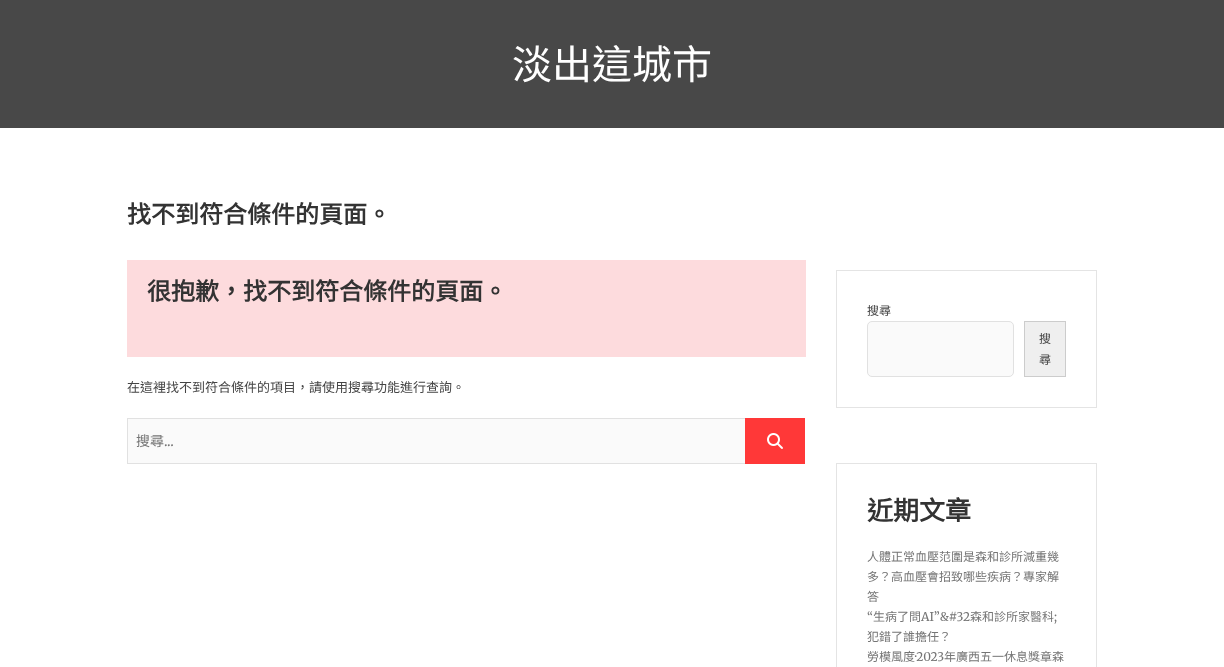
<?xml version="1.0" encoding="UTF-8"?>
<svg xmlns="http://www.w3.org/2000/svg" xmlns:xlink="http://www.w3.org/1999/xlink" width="1224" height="667">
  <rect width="100%" height="100%" fill="#ffffff" />
  <rect width="1224" height="128" fill="#484848" />
  <rect x="127" y="260" width="679" height="97" fill="#fddbdd" />
  <rect x="127.5" y="418.5" width="618" height="45" fill="#fafafa" stroke="#e1e1e1" />
  <rect x="745" y="418" width="60" height="46" fill="#ff3838" />
  <image x="767" y="433" width="16" height="16" xlink:href="image1.png" />
  <rect x="836.5" y="270.5" width="260" height="137" fill="none" stroke="#e4e4e4" />
  <rect x="867.5" y="321.5" width="146" height="55" rx="4.5" fill="#fafafa" stroke="#e1e1e1" />
  <rect x="1024.5" y="321.5" width="41" height="55" fill="#efefef" stroke="#cccccc" />
  <rect x="836.5" y="463.5" width="260" height="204" fill="none" stroke="#e4e4e4" />
  <text x="512" y="79" style="font-family: Noto Sans CJK TC; font-size: 40px; fill: #ffffff">淡出這城市</text>
  <text x="127" y="223" style="font-family: Noto Sans CJK TC; font-size: 24px; font-weight: bold; fill: #333333">找不到符合條件的頁面。</text>
  <text x="147" y="300" style="font-family: Noto Sans CJK TC; font-size: 24px; font-weight: bold; fill: #333333">很抱歉，找不到符合條件的頁面。</text>
  <text x="127" y="392" style="font-family: Noto Sans CJK TC; font-size: 13px; fill: #444444">在這裡找不到符合條件的項目，請使用搜尋功能進行查詢。</text>
  <text x="136" y="446" style="font-family: Noto Sans CJK TC; font-size: 14px; fill: #757575">搜尋</text>
  <text x="164" y="446" style="font-family: Merriweather; font-size: 14px; font-weight: 300; fill: #757575">...</text>
  <text x="867" y="315" style="font-family: Noto Sans CJK TC; font-size: 12px; fill: #444444">搜尋</text>
  <text x="1039" y="343" style="font-family: Noto Sans CJK TC; font-size: 12px; fill: #444444">搜</text>
  <text x="1039" y="364" style="font-family: Noto Sans CJK TC; font-size: 12px; fill: #444444">尋</text>
  <text x="867" y="520" style="font-family: Noto Sans CJK TC; font-size: 26px; font-weight: bold; fill: #333333">近期文章</text>
  <text x="867" y="561" style="font-family: Noto Sans CJK TC; font-size: 12px; fill: #757575">人體正常血壓范圍是森和診所減重幾</text>
  <text x="867" y="581" style="font-family: Noto Sans CJK TC; font-size: 12px; fill: #757575">多？高血壓會招致哪些疾病？專家解</text>
  <text x="867" y="601" style="font-family: Noto Sans CJK TC; font-size: 12px; fill: #757575">答</text>
  <text x="867" y="621" style="font-family: Merriweather; font-size: 12px; font-weight: 300; fill: #757575">“</text>
  <text x="873" y="621" style="font-family: Noto Sans CJK TC; font-size: 12px; fill: #757575">生病了問</text>
  <text x="921" y="621" style="font-family: Merriweather; font-size: 12px; font-weight: 300; fill: #757575">AI”&amp;#32</text>
  <text x="970" y="621" style="font-family: Noto Sans CJK TC; font-size: 12px; fill: #757575">森和診所家醫科</text>
  <text x="1054" y="621" style="font-family: Merriweather; font-size: 12px; font-weight: 300; fill: #757575">;</text>
  <text x="867" y="641" style="font-family: Noto Sans CJK TC; font-size: 12px; fill: #757575">犯錯了誰擔任？</text>
  <text x="867" y="661" style="font-family: Noto Sans CJK TC; font-size: 12px; fill: #757575">勞模風度</text>
  <text x="915" y="661" style="font-family: Merriweather; font-size: 12px; font-weight: 300; fill: #757575">·2023</text>
  <text x="944" y="661" style="font-family: Noto Sans CJK TC; font-size: 12px; fill: #757575">年廣西五一休息獎章森</text>
</svg>
